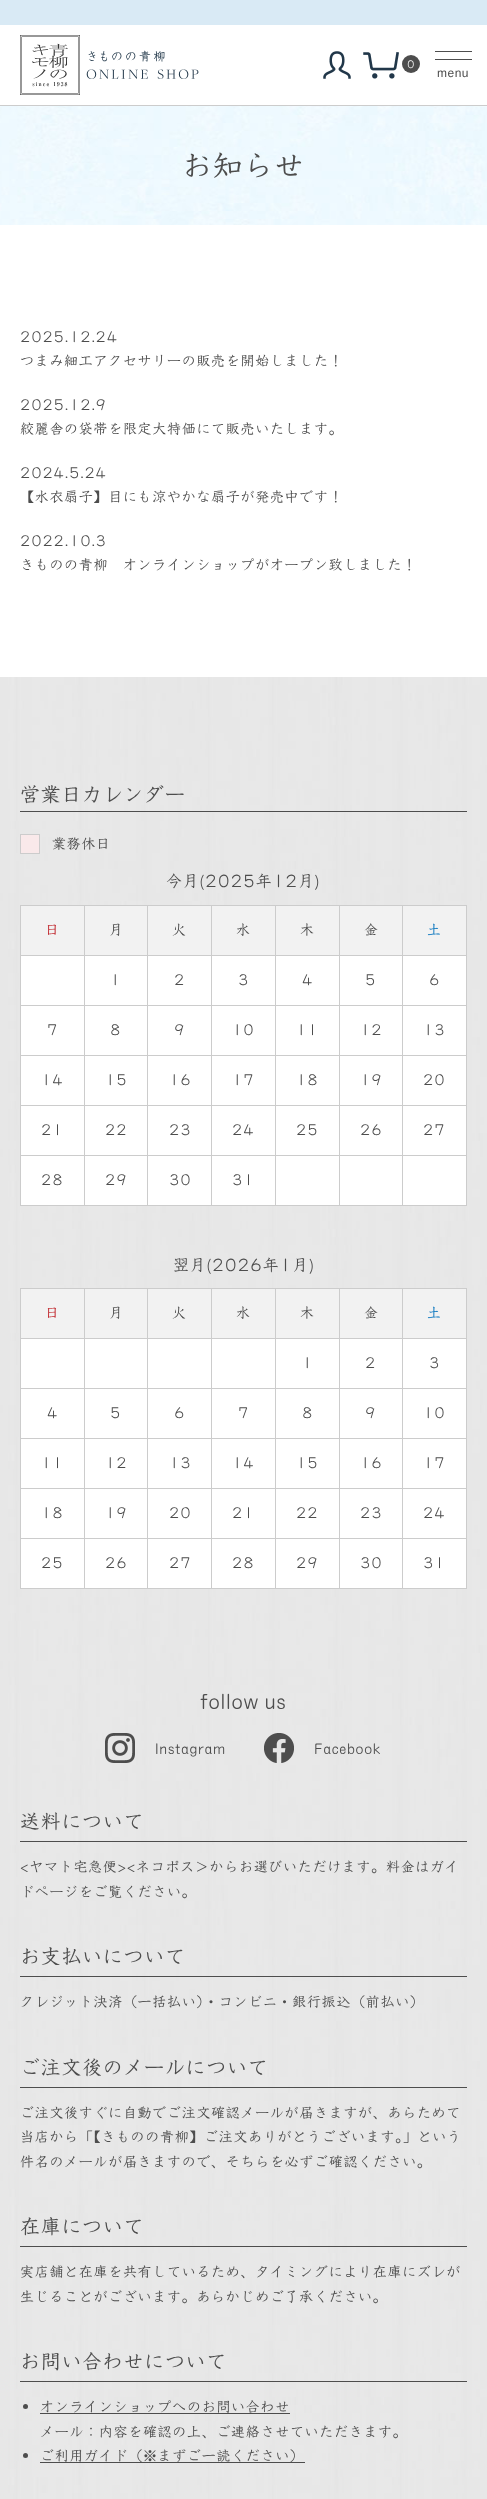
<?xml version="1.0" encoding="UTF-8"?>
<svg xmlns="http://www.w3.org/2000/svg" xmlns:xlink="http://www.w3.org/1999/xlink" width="487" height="2499">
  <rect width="100%" height="100%" fill="#ffffff" />
  <rect width="487" height="25" fill="#d9eaf5" />
  <rect y="105" width="487" height="1" fill="#cccccc" />
  <image x="20" y="35" width="179" height="60" xlink:href="image1.png" />
  <image x="323" y="51" width="28" height="28" xlink:href="image2.png" />
  <image x="363" y="52" width="36" height="27" xlink:href="image3.png" />
  <circle cx="411" cy="64" r="9" fill="#4d4d4d" />
  <rect x="435" y="51" width="37" height="1" fill="#4d4d4d" />
  <rect x="435" y="59" width="37" height="1" fill="#4d4d4d" />
  <image x="0" y="106" width="487" height="119" xlink:href="image4.png" />
  <image x="0" y="677" width="487" height="1822" xlink:href="image5.png" />
  <rect x="20" y="811" width="447" height="1" fill="#4d4d4d" />
  <rect x="20.5" y="834.5" width="19" height="19" fill="#f9e9ea" stroke="#cccccc" />
  <rect x="21" y="906" width="63" height="49" fill="#f2f2f2" />
  <rect x="402" y="905" width="65" height="1" fill="#cccccc" />
  <rect x="402" y="955" width="65" height="1" fill="#cccccc" />
  <rect x="402" y="1005" width="65" height="1" fill="#cccccc" />
  <rect x="402" y="1055" width="65" height="1" fill="#cccccc" />
  <rect x="402" y="1105" width="65" height="1" fill="#cccccc" />
  <rect x="402" y="1155" width="65" height="1" fill="#cccccc" />
  <rect x="466" y="1155" width="1" height="51" fill="#cccccc" />
  <rect x="402" y="1205" width="65" height="1" fill="#cccccc" />
  <rect x="402" y="1155" width="1" height="51" fill="#cccccc" />
  <rect x="339" y="1155" width="64" height="1" fill="#cccccc" />
  <rect x="402" y="1105" width="1" height="51" fill="#cccccc" />
  <rect x="339" y="1105" width="64" height="1" fill="#cccccc" />
  <rect x="402" y="1055" width="1" height="51" fill="#cccccc" />
  <rect x="339" y="1055" width="64" height="1" fill="#cccccc" />
  <rect x="402" y="1005" width="1" height="51" fill="#cccccc" />
  <rect x="339" y="1005" width="64" height="1" fill="#cccccc" />
  <rect x="402" y="955" width="1" height="51" fill="#cccccc" />
  <rect x="339" y="955" width="64" height="1" fill="#cccccc" />
  <rect x="402" y="905" width="1" height="51" fill="#cccccc" />
  <rect x="339" y="905" width="64" height="1" fill="#cccccc" />
  <rect x="339" y="1205" width="64" height="1" fill="#cccccc" />
  <rect x="339" y="1155" width="1" height="51" fill="#cccccc" />
  <rect x="275" y="1155" width="65" height="1" fill="#cccccc" />
  <rect x="339" y="1105" width="1" height="51" fill="#cccccc" />
  <rect x="275" y="1105" width="65" height="1" fill="#cccccc" />
  <rect x="339" y="1055" width="1" height="51" fill="#cccccc" />
  <rect x="275" y="1055" width="65" height="1" fill="#cccccc" />
  <rect x="339" y="1005" width="1" height="51" fill="#cccccc" />
  <rect x="275" y="1005" width="65" height="1" fill="#cccccc" />
  <rect x="339" y="955" width="1" height="51" fill="#cccccc" />
  <rect x="275" y="955" width="65" height="1" fill="#cccccc" />
  <rect x="339" y="905" width="1" height="51" fill="#cccccc" />
  <rect x="275" y="905" width="65" height="1" fill="#cccccc" />
  <rect x="275" y="1205" width="65" height="1" fill="#cccccc" />
  <rect x="275" y="1155" width="1" height="51" fill="#cccccc" />
  <rect x="211" y="1155" width="65" height="1" fill="#cccccc" />
  <rect x="275" y="1105" width="1" height="51" fill="#cccccc" />
  <rect x="211" y="1105" width="65" height="1" fill="#cccccc" />
  <rect x="275" y="1055" width="1" height="51" fill="#cccccc" />
  <rect x="211" y="1055" width="65" height="1" fill="#cccccc" />
  <rect x="275" y="1005" width="1" height="51" fill="#cccccc" />
  <rect x="211" y="1005" width="65" height="1" fill="#cccccc" />
  <rect x="275" y="955" width="1" height="51" fill="#cccccc" />
  <rect x="211" y="955" width="65" height="1" fill="#cccccc" />
  <rect x="275" y="905" width="1" height="51" fill="#cccccc" />
  <rect x="211" y="905" width="65" height="1" fill="#cccccc" />
  <rect x="211" y="1205" width="65" height="1" fill="#cccccc" />
  <rect x="211" y="1155" width="1" height="51" fill="#cccccc" />
  <rect x="147" y="1155" width="65" height="1" fill="#cccccc" />
  <rect x="211" y="1105" width="1" height="51" fill="#cccccc" />
  <rect x="147" y="1105" width="65" height="1" fill="#cccccc" />
  <rect x="211" y="1055" width="1" height="51" fill="#cccccc" />
  <rect x="147" y="1055" width="65" height="1" fill="#cccccc" />
  <rect x="211" y="1005" width="1" height="51" fill="#cccccc" />
  <rect x="147" y="1005" width="65" height="1" fill="#cccccc" />
  <rect x="211" y="955" width="1" height="51" fill="#cccccc" />
  <rect x="147" y="955" width="65" height="1" fill="#cccccc" />
  <rect x="211" y="905" width="1" height="51" fill="#cccccc" />
  <rect x="147" y="905" width="65" height="1" fill="#cccccc" />
  <rect x="147" y="1205" width="65" height="1" fill="#cccccc" />
  <rect x="147" y="1155" width="1" height="51" fill="#cccccc" />
  <rect x="84" y="1155" width="64" height="1" fill="#cccccc" />
  <rect x="147" y="1105" width="1" height="51" fill="#cccccc" />
  <rect x="84" y="1105" width="64" height="1" fill="#cccccc" />
  <rect x="147" y="1055" width="1" height="51" fill="#cccccc" />
  <rect x="84" y="1055" width="64" height="1" fill="#cccccc" />
  <rect x="147" y="1005" width="1" height="51" fill="#cccccc" />
  <rect x="84" y="1005" width="64" height="1" fill="#cccccc" />
  <rect x="147" y="955" width="1" height="51" fill="#cccccc" />
  <rect x="84" y="955" width="64" height="1" fill="#cccccc" />
  <rect x="147" y="905" width="1" height="51" fill="#cccccc" />
  <rect x="84" y="905" width="64" height="1" fill="#cccccc" />
  <rect x="84" y="1205" width="64" height="1" fill="#cccccc" />
  <rect x="84" y="1155" width="1" height="51" fill="#cccccc" />
  <rect x="20" y="1155" width="65" height="1" fill="#cccccc" />
  <rect x="84" y="1105" width="1" height="51" fill="#cccccc" />
  <rect x="20" y="1105" width="65" height="1" fill="#cccccc" />
  <rect x="84" y="1055" width="1" height="51" fill="#cccccc" />
  <rect x="20" y="1055" width="65" height="1" fill="#cccccc" />
  <rect x="84" y="1005" width="1" height="51" fill="#cccccc" />
  <rect x="20" y="1005" width="65" height="1" fill="#cccccc" />
  <rect x="84" y="955" width="1" height="51" fill="#cccccc" />
  <rect x="20" y="955" width="65" height="1" fill="#cccccc" />
  <rect x="84" y="905" width="1" height="51" fill="#cccccc" />
  <rect x="20" y="905" width="65" height="1" fill="#cccccc" />
  <rect x="20" y="1205" width="65" height="1" fill="#cccccc" />
  <rect x="20" y="1155" width="1" height="51" fill="#cccccc" />
  <rect x="20" y="1105" width="1" height="51" fill="#cccccc" />
  <rect x="20" y="1055" width="1" height="51" fill="#cccccc" />
  <rect x="20" y="1005" width="1" height="51" fill="#cccccc" />
  <rect x="20" y="955" width="1" height="51" fill="#cccccc" />
  <rect x="20" y="905" width="1" height="51" fill="#cccccc" />
  <rect x="85" y="906" width="62" height="49" fill="#f2f2f2" />
  <rect x="148" y="906" width="63" height="49" fill="#f2f2f2" />
  <rect x="212" y="906" width="63" height="49" fill="#f2f2f2" />
  <rect x="276" y="906" width="63" height="49" fill="#f2f2f2" />
  <rect x="340" y="906" width="62" height="49" fill="#f2f2f2" />
  <rect x="403" y="906" width="63" height="49" fill="#f2f2f2" />
  <rect x="466" y="1105" width="1" height="51" fill="#cccccc" />
  <rect x="466" y="1055" width="1" height="51" fill="#cccccc" />
  <rect x="466" y="1005" width="1" height="51" fill="#cccccc" />
  <rect x="466" y="955" width="1" height="51" fill="#cccccc" />
  <rect x="466" y="905" width="1" height="51" fill="#cccccc" />
  <rect x="21" y="956" width="63" height="49" fill="#ffffff" />
  <rect x="85" y="956" width="62" height="49" fill="#ffffff" />
  <rect x="148" y="956" width="63" height="49" fill="#ffffff" />
  <rect x="212" y="956" width="63" height="49" fill="#ffffff" />
  <rect x="276" y="956" width="63" height="49" fill="#ffffff" />
  <rect x="340" y="956" width="62" height="49" fill="#ffffff" />
  <rect x="403" y="956" width="63" height="49" fill="#ffffff" />
  <rect x="21" y="1006" width="63" height="49" fill="#ffffff" />
  <rect x="85" y="1006" width="62" height="49" fill="#ffffff" />
  <rect x="148" y="1006" width="63" height="49" fill="#ffffff" />
  <rect x="212" y="1006" width="63" height="49" fill="#ffffff" />
  <rect x="276" y="1006" width="63" height="49" fill="#ffffff" />
  <rect x="340" y="1006" width="62" height="49" fill="#ffffff" />
  <rect x="403" y="1006" width="63" height="49" fill="#ffffff" />
  <rect x="21" y="1056" width="63" height="49" fill="#ffffff" />
  <rect x="85" y="1056" width="62" height="49" fill="#ffffff" />
  <rect x="148" y="1056" width="63" height="49" fill="#ffffff" />
  <rect x="212" y="1056" width="63" height="49" fill="#ffffff" />
  <rect x="276" y="1056" width="63" height="49" fill="#ffffff" />
  <rect x="340" y="1056" width="62" height="49" fill="#ffffff" />
  <rect x="403" y="1056" width="63" height="49" fill="#ffffff" />
  <rect x="21" y="1106" width="63" height="49" fill="#ffffff" />
  <rect x="85" y="1106" width="62" height="49" fill="#ffffff" />
  <rect x="148" y="1106" width="63" height="49" fill="#ffffff" />
  <rect x="212" y="1106" width="63" height="49" fill="#ffffff" />
  <rect x="276" y="1106" width="63" height="49" fill="#ffffff" />
  <rect x="340" y="1106" width="62" height="49" fill="#ffffff" />
  <rect x="403" y="1106" width="63" height="49" fill="#ffffff" />
  <rect x="21" y="1156" width="63" height="49" fill="#ffffff" />
  <rect x="85" y="1156" width="62" height="49" fill="#ffffff" />
  <rect x="148" y="1156" width="63" height="49" fill="#ffffff" />
  <rect x="212" y="1156" width="63" height="49" fill="#ffffff" />
  <rect x="276" y="1156" width="63" height="49" fill="#ffffff" />
  <rect x="340" y="1156" width="62" height="49" fill="#ffffff" />
  <rect x="403" y="1156" width="63" height="49" fill="#ffffff" />
  <rect x="21" y="1289" width="63" height="49" fill="#f2f2f2" />
  <rect x="402" y="1288" width="65" height="1" fill="#cccccc" />
  <rect x="402" y="1338" width="65" height="1" fill="#cccccc" />
  <rect x="402" y="1388" width="65" height="1" fill="#cccccc" />
  <rect x="402" y="1438" width="65" height="1" fill="#cccccc" />
  <rect x="402" y="1488" width="65" height="1" fill="#cccccc" />
  <rect x="402" y="1538" width="65" height="1" fill="#cccccc" />
  <rect x="466" y="1538" width="1" height="51" fill="#cccccc" />
  <rect x="402" y="1588" width="65" height="1" fill="#cccccc" />
  <rect x="402" y="1538" width="1" height="51" fill="#cccccc" />
  <rect x="339" y="1538" width="64" height="1" fill="#cccccc" />
  <rect x="402" y="1488" width="1" height="51" fill="#cccccc" />
  <rect x="339" y="1488" width="64" height="1" fill="#cccccc" />
  <rect x="402" y="1438" width="1" height="51" fill="#cccccc" />
  <rect x="339" y="1438" width="64" height="1" fill="#cccccc" />
  <rect x="402" y="1388" width="1" height="51" fill="#cccccc" />
  <rect x="339" y="1388" width="64" height="1" fill="#cccccc" />
  <rect x="402" y="1338" width="1" height="51" fill="#cccccc" />
  <rect x="339" y="1338" width="64" height="1" fill="#cccccc" />
  <rect x="402" y="1288" width="1" height="51" fill="#cccccc" />
  <rect x="339" y="1288" width="64" height="1" fill="#cccccc" />
  <rect x="339" y="1588" width="64" height="1" fill="#cccccc" />
  <rect x="339" y="1538" width="1" height="51" fill="#cccccc" />
  <rect x="275" y="1538" width="65" height="1" fill="#cccccc" />
  <rect x="339" y="1488" width="1" height="51" fill="#cccccc" />
  <rect x="275" y="1488" width="65" height="1" fill="#cccccc" />
  <rect x="339" y="1438" width="1" height="51" fill="#cccccc" />
  <rect x="275" y="1438" width="65" height="1" fill="#cccccc" />
  <rect x="339" y="1388" width="1" height="51" fill="#cccccc" />
  <rect x="275" y="1388" width="65" height="1" fill="#cccccc" />
  <rect x="339" y="1338" width="1" height="51" fill="#cccccc" />
  <rect x="275" y="1338" width="65" height="1" fill="#cccccc" />
  <rect x="339" y="1288" width="1" height="51" fill="#cccccc" />
  <rect x="275" y="1288" width="65" height="1" fill="#cccccc" />
  <rect x="275" y="1588" width="65" height="1" fill="#cccccc" />
  <rect x="275" y="1538" width="1" height="51" fill="#cccccc" />
  <rect x="211" y="1538" width="65" height="1" fill="#cccccc" />
  <rect x="275" y="1488" width="1" height="51" fill="#cccccc" />
  <rect x="211" y="1488" width="65" height="1" fill="#cccccc" />
  <rect x="275" y="1438" width="1" height="51" fill="#cccccc" />
  <rect x="211" y="1438" width="65" height="1" fill="#cccccc" />
  <rect x="275" y="1388" width="1" height="51" fill="#cccccc" />
  <rect x="211" y="1388" width="65" height="1" fill="#cccccc" />
  <rect x="275" y="1338" width="1" height="51" fill="#cccccc" />
  <rect x="211" y="1338" width="65" height="1" fill="#cccccc" />
  <rect x="275" y="1288" width="1" height="51" fill="#cccccc" />
  <rect x="211" y="1288" width="65" height="1" fill="#cccccc" />
  <rect x="211" y="1588" width="65" height="1" fill="#cccccc" />
  <rect x="211" y="1538" width="1" height="51" fill="#cccccc" />
  <rect x="147" y="1538" width="65" height="1" fill="#cccccc" />
  <rect x="211" y="1488" width="1" height="51" fill="#cccccc" />
  <rect x="147" y="1488" width="65" height="1" fill="#cccccc" />
  <rect x="211" y="1438" width="1" height="51" fill="#cccccc" />
  <rect x="147" y="1438" width="65" height="1" fill="#cccccc" />
  <rect x="211" y="1388" width="1" height="51" fill="#cccccc" />
  <rect x="147" y="1388" width="65" height="1" fill="#cccccc" />
  <rect x="211" y="1338" width="1" height="51" fill="#cccccc" />
  <rect x="147" y="1338" width="65" height="1" fill="#cccccc" />
  <rect x="211" y="1288" width="1" height="51" fill="#cccccc" />
  <rect x="147" y="1288" width="65" height="1" fill="#cccccc" />
  <rect x="147" y="1588" width="65" height="1" fill="#cccccc" />
  <rect x="147" y="1538" width="1" height="51" fill="#cccccc" />
  <rect x="84" y="1538" width="64" height="1" fill="#cccccc" />
  <rect x="147" y="1488" width="1" height="51" fill="#cccccc" />
  <rect x="84" y="1488" width="64" height="1" fill="#cccccc" />
  <rect x="147" y="1438" width="1" height="51" fill="#cccccc" />
  <rect x="84" y="1438" width="64" height="1" fill="#cccccc" />
  <rect x="147" y="1388" width="1" height="51" fill="#cccccc" />
  <rect x="84" y="1388" width="64" height="1" fill="#cccccc" />
  <rect x="147" y="1338" width="1" height="51" fill="#cccccc" />
  <rect x="84" y="1338" width="64" height="1" fill="#cccccc" />
  <rect x="147" y="1288" width="1" height="51" fill="#cccccc" />
  <rect x="84" y="1288" width="64" height="1" fill="#cccccc" />
  <rect x="84" y="1588" width="64" height="1" fill="#cccccc" />
  <rect x="84" y="1538" width="1" height="51" fill="#cccccc" />
  <rect x="20" y="1538" width="65" height="1" fill="#cccccc" />
  <rect x="84" y="1488" width="1" height="51" fill="#cccccc" />
  <rect x="20" y="1488" width="65" height="1" fill="#cccccc" />
  <rect x="84" y="1438" width="1" height="51" fill="#cccccc" />
  <rect x="20" y="1438" width="65" height="1" fill="#cccccc" />
  <rect x="84" y="1388" width="1" height="51" fill="#cccccc" />
  <rect x="20" y="1388" width="65" height="1" fill="#cccccc" />
  <rect x="84" y="1338" width="1" height="51" fill="#cccccc" />
  <rect x="20" y="1338" width="65" height="1" fill="#cccccc" />
  <rect x="84" y="1288" width="1" height="51" fill="#cccccc" />
  <rect x="20" y="1288" width="65" height="1" fill="#cccccc" />
  <rect x="20" y="1588" width="65" height="1" fill="#cccccc" />
  <rect x="20" y="1538" width="1" height="51" fill="#cccccc" />
  <rect x="20" y="1488" width="1" height="51" fill="#cccccc" />
  <rect x="20" y="1438" width="1" height="51" fill="#cccccc" />
  <rect x="20" y="1388" width="1" height="51" fill="#cccccc" />
  <rect x="20" y="1338" width="1" height="51" fill="#cccccc" />
  <rect x="20" y="1288" width="1" height="51" fill="#cccccc" />
  <rect x="85" y="1289" width="62" height="49" fill="#f2f2f2" />
  <rect x="148" y="1289" width="63" height="49" fill="#f2f2f2" />
  <rect x="212" y="1289" width="63" height="49" fill="#f2f2f2" />
  <rect x="276" y="1289" width="63" height="49" fill="#f2f2f2" />
  <rect x="340" y="1289" width="62" height="49" fill="#f2f2f2" />
  <rect x="403" y="1289" width="63" height="49" fill="#f2f2f2" />
  <rect x="466" y="1488" width="1" height="51" fill="#cccccc" />
  <rect x="466" y="1438" width="1" height="51" fill="#cccccc" />
  <rect x="466" y="1388" width="1" height="51" fill="#cccccc" />
  <rect x="466" y="1338" width="1" height="51" fill="#cccccc" />
  <rect x="466" y="1288" width="1" height="51" fill="#cccccc" />
  <rect x="21" y="1339" width="63" height="49" fill="#ffffff" />
  <rect x="85" y="1339" width="62" height="49" fill="#ffffff" />
  <rect x="148" y="1339" width="63" height="49" fill="#ffffff" />
  <rect x="212" y="1339" width="63" height="49" fill="#ffffff" />
  <rect x="276" y="1339" width="63" height="49" fill="#ffffff" />
  <rect x="340" y="1339" width="62" height="49" fill="#ffffff" />
  <rect x="403" y="1339" width="63" height="49" fill="#ffffff" />
  <rect x="21" y="1389" width="63" height="49" fill="#ffffff" />
  <rect x="85" y="1389" width="62" height="49" fill="#ffffff" />
  <rect x="148" y="1389" width="63" height="49" fill="#ffffff" />
  <rect x="212" y="1389" width="63" height="49" fill="#ffffff" />
  <rect x="276" y="1389" width="63" height="49" fill="#ffffff" />
  <rect x="340" y="1389" width="62" height="49" fill="#ffffff" />
  <rect x="403" y="1389" width="63" height="49" fill="#ffffff" />
  <rect x="21" y="1439" width="63" height="49" fill="#ffffff" />
  <rect x="85" y="1439" width="62" height="49" fill="#ffffff" />
  <rect x="148" y="1439" width="63" height="49" fill="#ffffff" />
  <rect x="212" y="1439" width="63" height="49" fill="#ffffff" />
  <rect x="276" y="1439" width="63" height="49" fill="#ffffff" />
  <rect x="340" y="1439" width="62" height="49" fill="#ffffff" />
  <rect x="403" y="1439" width="63" height="49" fill="#ffffff" />
  <rect x="21" y="1489" width="63" height="49" fill="#ffffff" />
  <rect x="85" y="1489" width="62" height="49" fill="#ffffff" />
  <rect x="148" y="1489" width="63" height="49" fill="#ffffff" />
  <rect x="212" y="1489" width="63" height="49" fill="#ffffff" />
  <rect x="276" y="1489" width="63" height="49" fill="#ffffff" />
  <rect x="340" y="1489" width="62" height="49" fill="#ffffff" />
  <rect x="403" y="1489" width="63" height="49" fill="#ffffff" />
  <rect x="21" y="1539" width="63" height="49" fill="#ffffff" />
  <rect x="85" y="1539" width="62" height="49" fill="#ffffff" />
  <rect x="148" y="1539" width="63" height="49" fill="#ffffff" />
  <rect x="212" y="1539" width="63" height="49" fill="#ffffff" />
  <rect x="276" y="1539" width="63" height="49" fill="#ffffff" />
  <rect x="340" y="1539" width="62" height="49" fill="#ffffff" />
  <rect x="403" y="1539" width="63" height="49" fill="#ffffff" />
  <image x="105" y="1733" width="30" height="30" xlink:href="image6.png" />
  <image x="264" y="1733" width="30" height="30" xlink:href="image7.png" />
  <rect x="20" y="1841" width="447" height="1" fill="#4d4d4d" />
  <rect x="20" y="1976" width="447" height="1" fill="#4d4d4d" />
  <rect x="20" y="2087" width="447" height="1" fill="#4d4d4d" />
  <rect x="20" y="2246" width="447" height="1" fill="#4d4d4d" />
  <rect x="20" y="2381" width="447" height="1" fill="#4d4d4d" />
  <circle cx="25.5" cy="2406.5" r="2.5" fill="#4d4d4d" />
  <rect x="40" y="2413" width="250" height="1" fill="#4d4d4d" />
  <circle cx="25.5" cy="2455.5" r="2.5" fill="#4d4d4d" />
  <rect x="40" y="2462" width="265" height="1" fill="#4d4d4d" />
  <text x="407" y="68" style="font-family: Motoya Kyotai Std; font-size: 10px; letter-spacing: 0.7px; fill: #ffffff">0</text>
  <text x="437" y="77" style="font-family: Liberation Sans; font-size: 12px; letter-spacing: 0.5px; fill: #4d4d4d">menu</text>
  <text x="182" y="177" style="font-family: Motoya Kyotai Std; font-size: 30px; letter-spacing: 0.7px; fill: #4d4d4d">お知らせ</text>
  <text x="20" y="342" style="font-family: Motoya Kyotai Std; font-size: 14px; letter-spacing: 0.7px; fill: #4d4d4d">2025.12.24</text>
  <text x="20" y="366" style="font-family: Motoya Kyotai Std; font-size: 14px; letter-spacing: 0.7px; fill: #4d4d4d">つまみ細工アクセサリーの販売を開始しました！</text>
  <text x="20" y="410" style="font-family: Motoya Kyotai Std; font-size: 14px; letter-spacing: 0.7px; fill: #4d4d4d">2025.12.9</text>
  <text x="20" y="434" style="font-family: Motoya Kyotai Std; font-size: 14px; letter-spacing: 0.7px; fill: #4d4d4d">絞麗舎の袋帯を限定大特価にて販売いたします。</text>
  <text x="20" y="478" style="font-family: Motoya Kyotai Std; font-size: 14px; letter-spacing: 0.7px; fill: #4d4d4d">2024.5.24</text>
  <text x="20" y="502" style="font-family: Motoya Kyotai Std; font-size: 14px; letter-spacing: 0.7px; fill: #4d4d4d">【水衣扇子】目にも涼やかな扇子が発売中です！</text>
  <text x="20" y="546" style="font-family: Motoya Kyotai Std; font-size: 14px; letter-spacing: 0.7px; fill: #4d4d4d">2022.10.3</text>
  <text x="20" y="570" style="font-family: Motoya Kyotai Std; font-size: 14px; letter-spacing: 0.7px; fill: #4d4d4d">きものの青柳　オンラインショップがオープン致しました！</text>
  <text x="20" y="802" style="font-family: Motoya Kyotai Std; font-size: 20px; letter-spacing: 0.7px; fill: #4d4d4d">営業日カレンダー</text>
  <text x="52" y="849" style="font-family: Motoya Kyotai Std; font-size: 14px; letter-spacing: 0.7px; fill: #4d4d4d">業務休日</text>
  <text x="166" y="887" style="font-family: Motoya Kyotai Std; font-size: 16px; letter-spacing: 0.7px; fill: #4d4d4d">今月(2025年12月)</text>
  <text x="45" y="935" style="font-family: Motoya Kyotai Std; font-size: 14px; letter-spacing: 0.7px; fill: #c1272d">日</text>
  <text x="109" y="935" style="font-family: Motoya Kyotai Std; font-size: 14px; letter-spacing: 0.7px; fill: #4d4d4d">月</text>
  <text x="172" y="935" style="font-family: Motoya Kyotai Std; font-size: 14px; letter-spacing: 0.7px; fill: #4d4d4d">火</text>
  <text x="236" y="935" style="font-family: Motoya Kyotai Std; font-size: 14px; letter-spacing: 0.7px; fill: #4d4d4d">水</text>
  <text x="300" y="935" style="font-family: Motoya Kyotai Std; font-size: 14px; letter-spacing: 0.7px; fill: #4d4d4d">木</text>
  <text x="364" y="935" style="font-family: Motoya Kyotai Std; font-size: 14px; letter-spacing: 0.7px; fill: #4d4d4d">金</text>
  <text x="427" y="935" style="font-family: Motoya Kyotai Std; font-size: 14px; letter-spacing: 0.7px; fill: #0071bc">土</text>
  <text x="110" y="985" style="font-family: Motoya Kyotai Std; font-size: 14px; letter-spacing: 0.7px; fill: #4d4d4d">1</text>
  <text x="174" y="985" style="font-family: Motoya Kyotai Std; font-size: 14px; letter-spacing: 0.7px; fill: #4d4d4d">2</text>
  <text x="238" y="985" style="font-family: Motoya Kyotai Std; font-size: 14px; letter-spacing: 0.7px; fill: #4d4d4d">3</text>
  <text x="302" y="985" style="font-family: Motoya Kyotai Std; font-size: 14px; letter-spacing: 0.7px; fill: #4d4d4d">4</text>
  <text x="365" y="985" style="font-family: Motoya Kyotai Std; font-size: 14px; letter-spacing: 0.7px; fill: #4d4d4d">5</text>
  <text x="429" y="985" style="font-family: Motoya Kyotai Std; font-size: 14px; letter-spacing: 0.7px; fill: #4d4d4d">6</text>
  <text x="47" y="1035" style="font-family: Motoya Kyotai Std; font-size: 14px; letter-spacing: 0.7px; fill: #4d4d4d">7</text>
  <text x="110" y="1035" style="font-family: Motoya Kyotai Std; font-size: 14px; letter-spacing: 0.7px; fill: #4d4d4d">8</text>
  <text x="174" y="1035" style="font-family: Motoya Kyotai Std; font-size: 14px; letter-spacing: 0.7px; fill: #4d4d4d">9</text>
  <text x="232" y="1035" style="font-family: Motoya Kyotai Std; font-size: 14px; letter-spacing: 0.7px; fill: #4d4d4d">10</text>
  <text x="296" y="1035" style="font-family: Motoya Kyotai Std; font-size: 14px; letter-spacing: 0.7px; fill: #4d4d4d">11</text>
  <text x="360" y="1035" style="font-family: Motoya Kyotai Std; font-size: 14px; letter-spacing: 0.7px; fill: #4d4d4d">12</text>
  <text x="423" y="1035" style="font-family: Motoya Kyotai Std; font-size: 14px; letter-spacing: 0.7px; fill: #4d4d4d">13</text>
  <text x="41" y="1085" style="font-family: Motoya Kyotai Std; font-size: 14px; letter-spacing: 0.7px; fill: #4d4d4d">14</text>
  <text x="105" y="1085" style="font-family: Motoya Kyotai Std; font-size: 14px; letter-spacing: 0.7px; fill: #4d4d4d">15</text>
  <text x="169" y="1085" style="font-family: Motoya Kyotai Std; font-size: 14px; letter-spacing: 0.7px; fill: #4d4d4d">16</text>
  <text x="232" y="1085" style="font-family: Motoya Kyotai Std; font-size: 14px; letter-spacing: 0.7px; fill: #4d4d4d">17</text>
  <text x="296" y="1085" style="font-family: Motoya Kyotai Std; font-size: 14px; letter-spacing: 0.7px; fill: #4d4d4d">18</text>
  <text x="360" y="1085" style="font-family: Motoya Kyotai Std; font-size: 14px; letter-spacing: 0.7px; fill: #4d4d4d">19</text>
  <text x="423" y="1085" style="font-family: Motoya Kyotai Std; font-size: 14px; letter-spacing: 0.7px; fill: #4d4d4d">20</text>
  <text x="41" y="1135" style="font-family: Motoya Kyotai Std; font-size: 14px; letter-spacing: 0.7px; fill: #4d4d4d">21</text>
  <text x="105" y="1135" style="font-family: Motoya Kyotai Std; font-size: 14px; letter-spacing: 0.7px; fill: #4d4d4d">22</text>
  <text x="169" y="1135" style="font-family: Motoya Kyotai Std; font-size: 14px; letter-spacing: 0.7px; fill: #4d4d4d">23</text>
  <text x="232" y="1135" style="font-family: Motoya Kyotai Std; font-size: 14px; letter-spacing: 0.7px; fill: #4d4d4d">24</text>
  <text x="296" y="1135" style="font-family: Motoya Kyotai Std; font-size: 14px; letter-spacing: 0.7px; fill: #4d4d4d">25</text>
  <text x="360" y="1135" style="font-family: Motoya Kyotai Std; font-size: 14px; letter-spacing: 0.7px; fill: #4d4d4d">26</text>
  <text x="423" y="1135" style="font-family: Motoya Kyotai Std; font-size: 14px; letter-spacing: 0.7px; fill: #4d4d4d">27</text>
  <text x="41" y="1185" style="font-family: Motoya Kyotai Std; font-size: 14px; letter-spacing: 0.7px; fill: #4d4d4d">28</text>
  <text x="105" y="1185" style="font-family: Motoya Kyotai Std; font-size: 14px; letter-spacing: 0.7px; fill: #4d4d4d">29</text>
  <text x="169" y="1185" style="font-family: Motoya Kyotai Std; font-size: 14px; letter-spacing: 0.7px; fill: #4d4d4d">30</text>
  <text x="232" y="1185" style="font-family: Motoya Kyotai Std; font-size: 14px; letter-spacing: 0.7px; fill: #4d4d4d">31</text>
  <text x="173" y="1271" style="font-family: Motoya Kyotai Std; font-size: 16px; letter-spacing: 0.7px; fill: #4d4d4d">翌月(2026年1月)</text>
  <text x="45" y="1318" style="font-family: Motoya Kyotai Std; font-size: 14px; letter-spacing: 0.7px; fill: #c1272d">日</text>
  <text x="109" y="1318" style="font-family: Motoya Kyotai Std; font-size: 14px; letter-spacing: 0.7px; fill: #4d4d4d">月</text>
  <text x="172" y="1318" style="font-family: Motoya Kyotai Std; font-size: 14px; letter-spacing: 0.7px; fill: #4d4d4d">火</text>
  <text x="236" y="1318" style="font-family: Motoya Kyotai Std; font-size: 14px; letter-spacing: 0.7px; fill: #4d4d4d">水</text>
  <text x="300" y="1318" style="font-family: Motoya Kyotai Std; font-size: 14px; letter-spacing: 0.7px; fill: #4d4d4d">木</text>
  <text x="364" y="1318" style="font-family: Motoya Kyotai Std; font-size: 14px; letter-spacing: 0.7px; fill: #4d4d4d">金</text>
  <text x="427" y="1318" style="font-family: Motoya Kyotai Std; font-size: 14px; letter-spacing: 0.7px; fill: #0071bc">土</text>
  <text x="302" y="1368" style="font-family: Motoya Kyotai Std; font-size: 14px; letter-spacing: 0.7px; fill: #4d4d4d">1</text>
  <text x="365" y="1368" style="font-family: Motoya Kyotai Std; font-size: 14px; letter-spacing: 0.7px; fill: #4d4d4d">2</text>
  <text x="429" y="1368" style="font-family: Motoya Kyotai Std; font-size: 14px; letter-spacing: 0.7px; fill: #4d4d4d">3</text>
  <text x="47" y="1418" style="font-family: Motoya Kyotai Std; font-size: 14px; letter-spacing: 0.7px; fill: #4d4d4d">4</text>
  <text x="110" y="1418" style="font-family: Motoya Kyotai Std; font-size: 14px; letter-spacing: 0.7px; fill: #4d4d4d">5</text>
  <text x="174" y="1418" style="font-family: Motoya Kyotai Std; font-size: 14px; letter-spacing: 0.7px; fill: #4d4d4d">6</text>
  <text x="238" y="1418" style="font-family: Motoya Kyotai Std; font-size: 14px; letter-spacing: 0.7px; fill: #4d4d4d">7</text>
  <text x="302" y="1418" style="font-family: Motoya Kyotai Std; font-size: 14px; letter-spacing: 0.7px; fill: #4d4d4d">8</text>
  <text x="365" y="1418" style="font-family: Motoya Kyotai Std; font-size: 14px; letter-spacing: 0.7px; fill: #4d4d4d">9</text>
  <text x="423" y="1418" style="font-family: Motoya Kyotai Std; font-size: 14px; letter-spacing: 0.7px; fill: #4d4d4d">10</text>
  <text x="41" y="1468" style="font-family: Motoya Kyotai Std; font-size: 14px; letter-spacing: 0.7px; fill: #4d4d4d">11</text>
  <text x="105" y="1468" style="font-family: Motoya Kyotai Std; font-size: 14px; letter-spacing: 0.7px; fill: #4d4d4d">12</text>
  <text x="169" y="1468" style="font-family: Motoya Kyotai Std; font-size: 14px; letter-spacing: 0.7px; fill: #4d4d4d">13</text>
  <text x="232" y="1468" style="font-family: Motoya Kyotai Std; font-size: 14px; letter-spacing: 0.7px; fill: #4d4d4d">14</text>
  <text x="296" y="1468" style="font-family: Motoya Kyotai Std; font-size: 14px; letter-spacing: 0.7px; fill: #4d4d4d">15</text>
  <text x="360" y="1468" style="font-family: Motoya Kyotai Std; font-size: 14px; letter-spacing: 0.7px; fill: #4d4d4d">16</text>
  <text x="423" y="1468" style="font-family: Motoya Kyotai Std; font-size: 14px; letter-spacing: 0.7px; fill: #4d4d4d">17</text>
  <text x="41" y="1518" style="font-family: Motoya Kyotai Std; font-size: 14px; letter-spacing: 0.7px; fill: #4d4d4d">18</text>
  <text x="105" y="1518" style="font-family: Motoya Kyotai Std; font-size: 14px; letter-spacing: 0.7px; fill: #4d4d4d">19</text>
  <text x="169" y="1518" style="font-family: Motoya Kyotai Std; font-size: 14px; letter-spacing: 0.7px; fill: #4d4d4d">20</text>
  <text x="232" y="1518" style="font-family: Motoya Kyotai Std; font-size: 14px; letter-spacing: 0.7px; fill: #4d4d4d">21</text>
  <text x="296" y="1518" style="font-family: Motoya Kyotai Std; font-size: 14px; letter-spacing: 0.7px; fill: #4d4d4d">22</text>
  <text x="360" y="1518" style="font-family: Motoya Kyotai Std; font-size: 14px; letter-spacing: 0.7px; fill: #4d4d4d">23</text>
  <text x="423" y="1518" style="font-family: Motoya Kyotai Std; font-size: 14px; letter-spacing: 0.7px; fill: #4d4d4d">24</text>
  <text x="41" y="1568" style="font-family: Motoya Kyotai Std; font-size: 14px; letter-spacing: 0.7px; fill: #4d4d4d">25</text>
  <text x="105" y="1568" style="font-family: Motoya Kyotai Std; font-size: 14px; letter-spacing: 0.7px; fill: #4d4d4d">26</text>
  <text x="169" y="1568" style="font-family: Motoya Kyotai Std; font-size: 14px; letter-spacing: 0.7px; fill: #4d4d4d">27</text>
  <text x="232" y="1568" style="font-family: Motoya Kyotai Std; font-size: 14px; letter-spacing: 0.7px; fill: #4d4d4d">28</text>
  <text x="296" y="1568" style="font-family: Motoya Kyotai Std; font-size: 14px; letter-spacing: 0.7px; fill: #4d4d4d">29</text>
  <text x="360" y="1568" style="font-family: Motoya Kyotai Std; font-size: 14px; letter-spacing: 0.7px; fill: #4d4d4d">30</text>
  <text x="423" y="1568" style="font-family: Motoya Kyotai Std; font-size: 14px; letter-spacing: 0.7px; fill: #4d4d4d">31</text>
  <text x="200" y="1709" style="font-family: Motoya Kyotai Std; font-size: 20px; letter-spacing: 0.7px; fill: #4d4d4d">follow us</text>
  <text x="155" y="1754" style="font-family: Motoya Kyotai Std; font-size: 14px; letter-spacing: 0.7px; fill: #4d4d4d">Instagram</text>
  <text x="314" y="1754" style="font-family: Motoya Kyotai Std; font-size: 14px; letter-spacing: 0.7px; fill: #4d4d4d">Facebook</text>
  <text x="20" y="1829" style="font-family: Motoya Kyotai Std; font-size: 20px; letter-spacing: 0.7px; fill: #4d4d4d">送料について</text>
  <text x="20" y="1872" style="font-family: Motoya Kyotai Std; font-size: 14px; letter-spacing: 0.7px; fill: #4d4d4d">&lt;ヤマト宅急便&gt;&lt;ネコポス＞からお選びいただけます。料金はガイ</text>
  <text x="20" y="1897" style="font-family: Motoya Kyotai Std; font-size: 14px; letter-spacing: 0.7px; fill: #4d4d4d">ドページをご覧ください。</text>
  <text x="20" y="1964" style="font-family: Motoya Kyotai Std; font-size: 20px; letter-spacing: 0.7px; fill: #4d4d4d">お支払いについて</text>
  <text x="20" y="2007" style="font-family: Motoya Kyotai Std; font-size: 14px; letter-spacing: 0.7px; fill: #4d4d4d">クレジット決済（一括払い）・コンビニ・銀行振込（前払い）</text>
  <text x="20" y="2075" style="font-family: Motoya Kyotai Std; font-size: 20px; letter-spacing: 0.7px; fill: #4d4d4d">ご注文後のメールについて</text>
  <text x="20" y="2118" style="font-family: Motoya Kyotai Std; font-size: 14px; letter-spacing: 0.7px; fill: #4d4d4d">ご注文後すぐに自動でご注文確認メールが届きますが、あらためて</text>
  <text x="20" y="2142" style="font-family: Motoya Kyotai Std; font-size: 14px; letter-spacing: 0.7px; fill: #4d4d4d">当店から「【きものの青柳】ご注文ありがとうございます。」という</text>
  <text x="20" y="2167" style="font-family: Motoya Kyotai Std; font-size: 14px; letter-spacing: 0.7px; fill: #4d4d4d">件名のメールが届きますので、そちらを必ずご確認ください。</text>
  <text x="20" y="2234" style="font-family: Motoya Kyotai Std; font-size: 20px; letter-spacing: 0.7px; fill: #4d4d4d">在庫について</text>
  <text x="20" y="2277" style="font-family: Motoya Kyotai Std; font-size: 14px; letter-spacing: 0.7px; fill: #4d4d4d">実店舗と在庫を共有しているため、タイミングにより在庫にズレが</text>
  <text x="20" y="2302" style="font-family: Motoya Kyotai Std; font-size: 14px; letter-spacing: 0.7px; fill: #4d4d4d">生じることがございます。あらかじめご了承ください。</text>
  <text x="20" y="2369" style="font-family: Motoya Kyotai Std; font-size: 20px; letter-spacing: 0.7px; fill: #4d4d4d">お問い合わせについて</text>
  <text x="40" y="2412" style="font-family: Motoya Kyotai Std; font-size: 14px; letter-spacing: 0.7px; fill: #4d4d4d">オンラインショップへのお問い合わせ</text>
  <text x="40" y="2437" style="font-family: Motoya Kyotai Std; font-size: 14px; letter-spacing: 0.7px; fill: #4d4d4d">メール：内容を確認の上、ご連絡させていただきます。</text>
  <text x="40" y="2461" style="font-family: Motoya Kyotai Std; font-size: 14px; letter-spacing: 0.7px; fill: #4d4d4d">ご利用ガイド（※まずご一読ください）</text>
</svg>
